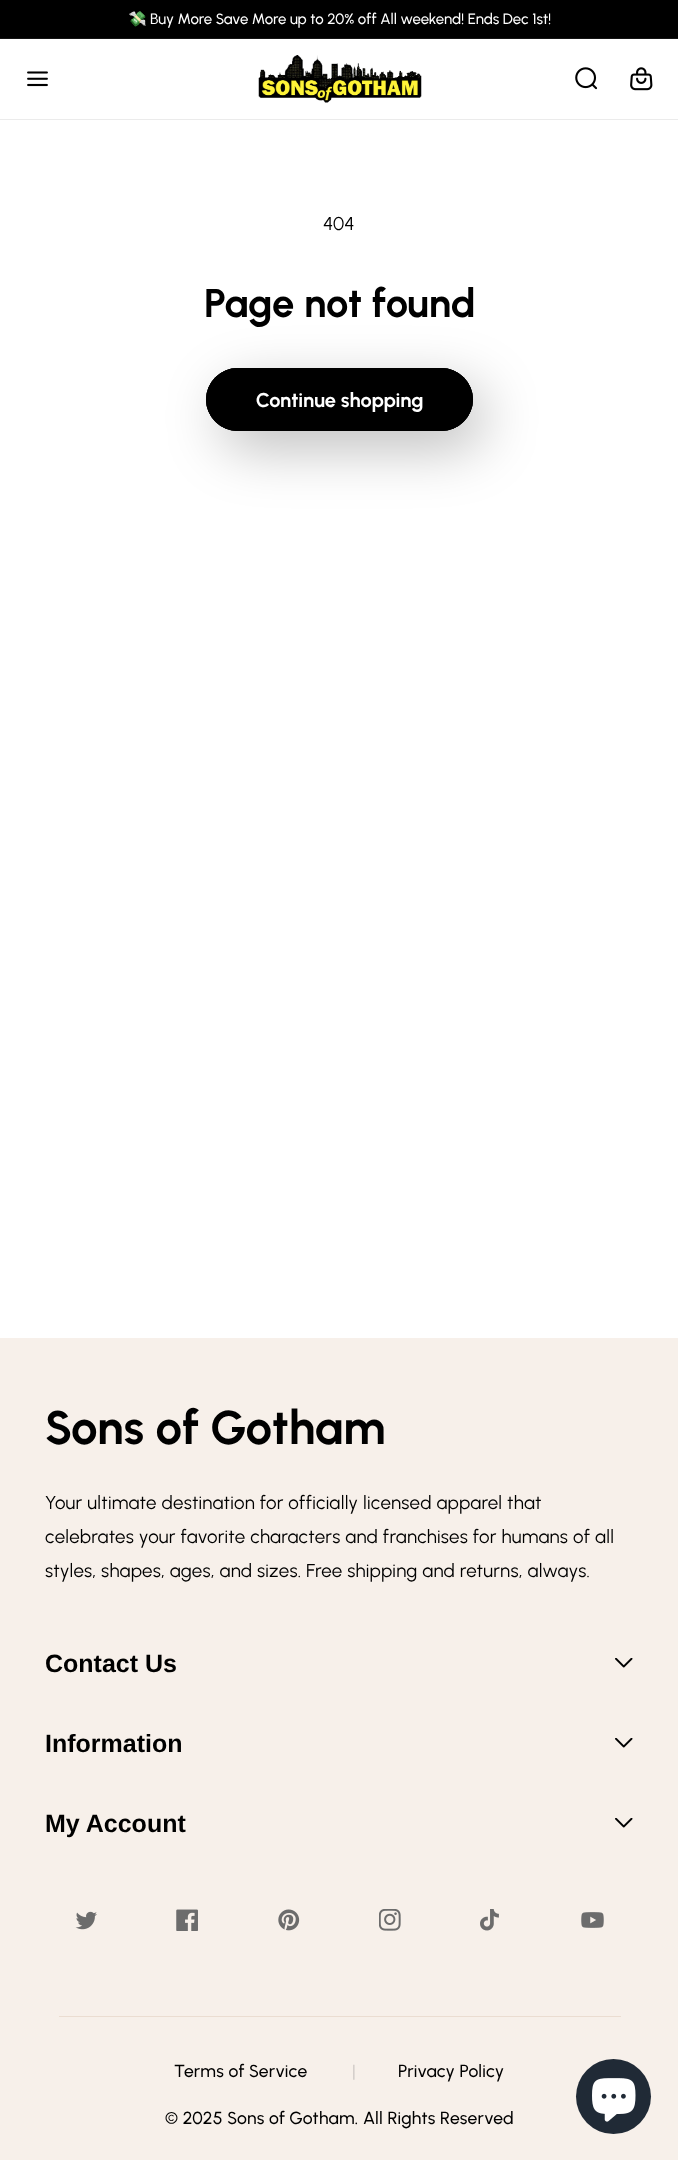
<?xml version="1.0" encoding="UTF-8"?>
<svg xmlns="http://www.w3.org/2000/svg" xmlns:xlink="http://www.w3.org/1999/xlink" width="678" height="2160">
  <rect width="100%" height="100%" fill="#ffffff" />
  <rect width="678" height="38" fill="#000000" />
  <rect y="38" width="678" height="1" fill="#141414" />
  <rect y="119" width="678" height="1" fill="#ebebeb" />
  <image x="27" y="71" width="21" height="16" xlink:href="image1.png" />
  <image x="258" y="55" width="164" height="48" xlink:href="image2.png" />
  <image x="575" y="67" width="23" height="23" xlink:href="image3.png" />
  <image x="630" y="67" width="23" height="24" xlink:href="image4.png" />
  <rect x="219" y="385" width="266" height="64" rx="32" fill="#000000" fill-opacity="0.25" filter="blur(27.5px)" />
  <rect x="206" y="368" width="267" height="63" rx="31.5" fill="#000000" />
  <rect x="206.5" y="368.5" width="266" height="62" rx="31" fill="none" stroke="#000000" />
  <rect x="206.5" y="368.5" width="266" height="62" rx="31" fill="none" stroke="#000000" />
  <rect y="1338" width="678" height="822" fill="#f7f0ea" />
  <image x="615" y="1658" width="18" height="10" xlink:href="image5.png" />
  <image x="615" y="1738" width="18" height="10" xlink:href="image5.png" />
  <image x="615" y="1818" width="18" height="10" xlink:href="image5.png" />
  <rect x="59" y="2016" width="562" height="1" fill="#ebddd1" />
  <image x="75" y="1911" width="22" height="19" xlink:href="image6.png" />
  <image x="176" y="1909" width="22" height="22" xlink:href="image7.png" />
  <image x="278" y="1909" width="22" height="22" xlink:href="image8.png" />
  <image x="379" y="1909" width="22" height="22" xlink:href="image9.png" />
  <image x="480" y="1909" width="19" height="22" xlink:href="image10.png" />
  <image x="581" y="1912" width="23" height="16" xlink:href="image11.png" />
  <circle cx="613.5" cy="2096.5" r="37.5" fill="#202a36" />
  <image x="592" y="2078" width="44" height="44" xlink:href="image12.png" />
  <text x="128" y="24" style="font-family: Noto Color Emoji; font-size: 15px; fill: #ffffff">💸</text>
  <text x="150" y="24" style="font-family: Urbanist; font-size: 15px; font-weight: 500; fill: #ffffff">Buy More Save More up to 20% off All weekend! Ends Dec 1st!</text>
  <text x="323" y="230" style="font-family: Urbanist; font-size: 18.75px; letter-spacing: 0.25px; fill: #000000">404</text>
  <text x="204" y="317" style="font-family: Urbanist; font-size: 40px; font-weight: bold; fill: #000000">Page not found</text>
  <text x="256" y="407" style="font-family: Urbanist; font-size: 20px; font-weight: bold; fill: #ffffff">Continue shopping</text>
  <text x="45" y="1444" style="font-family: Urbanist; font-size: 47.5px; font-weight: bold; fill: #000000">Sons of Gotham</text>
  <text x="45" y="1509" style="font-family: Urbanist; font-size: 18.75px; letter-spacing: 0.25px; fill: #000000">Your ultimate destination for officially licensed apparel that</text>
  <text x="45" y="1543" style="font-family: Urbanist; font-size: 18.75px; letter-spacing: 0.25px; fill: #000000">celebrates your favorite characters and franchises for humans of all</text>
  <text x="45" y="1577" style="font-family: Urbanist; font-size: 18.75px; letter-spacing: 0.25px; fill: #000000">styles, shapes, ages, and sizes. Free shipping and returns, always.</text>
  <text x="45" y="1672" style="font-family: Liberation Sans; font-size: 25px; font-weight: bold; fill: #000000">Contact Us</text>
  <text x="45" y="1752" style="font-family: Liberation Sans; font-size: 25px; font-weight: bold; fill: #000000">Information</text>
  <text x="45" y="1832" style="font-family: Liberation Sans; font-size: 25px; font-weight: bold; fill: #000000">My Account</text>
  <text x="174" y="2077" style="font-family: Urbanist; font-size: 17.5px; font-weight: 500; letter-spacing: 0.25px; fill: #000000">Terms of Service</text>
  <text x="352" y="2077" style="font-family: Urbanist; font-size: 17.5px; letter-spacing: 0.25px; fill: #cdc8c4">|</text>
  <text x="398" y="2077" style="font-family: Urbanist; font-size: 17.5px; font-weight: 500; letter-spacing: 0.25px; fill: #000000">Privacy Policy</text>
  <text x="165" y="2124" style="font-family: Urbanist; font-size: 17.5px; font-weight: 500; letter-spacing: 0.25px; fill: #000000">© 2025 Sons of Gotham. All Rights Reserved</text>
</svg>
